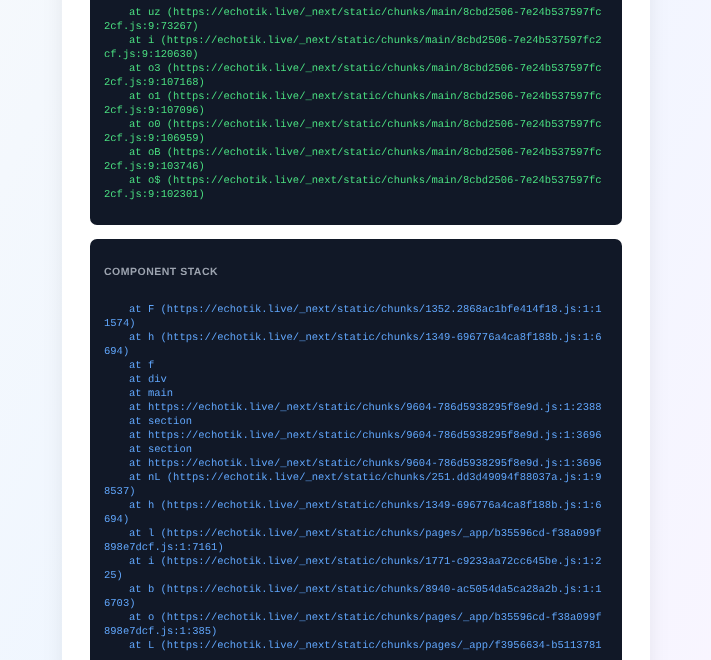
<?xml version="1.0" encoding="UTF-8"?>
<svg xmlns="http://www.w3.org/2000/svg" xmlns:xlink="http://www.w3.org/1999/xlink" width="711" height="660">
  <defs>
    <linearGradient id="g1" gradientUnits="userSpaceOnUse" x1="-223" y1="-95" x2="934" y2="458"><stop offset="0" stop-color="#f9fafb" /><stop offset="0.5" stop-color="#eff6ff" /><stop offset="1" stop-color="#faf5ff" /></linearGradient>
  </defs>
  <rect width="100%" height="100%" fill="#ffffff" />
  <rect width="711" height="660" fill="url(#g1)" />
  <rect x="67" y="-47" width="578" height="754" rx="9" fill="#000000" fill-opacity="0.1" filter="blur(12.5px)" />
  <rect x="62" width="588" height="660" fill="#ffffff" />
  <rect x="90" y="-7" width="532" height="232" rx="7" fill="#111827" />
  <rect x="90" y="239" width="532" height="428" rx="7" fill="#111827" />
  <text x="129" y="15" style="font-family: Liberation Mono; font-size: 10.5px; fill: #4ade80">at uz (https://echotik.live/_next/static/chunks/main/8cbd2506-7e24b537597fc</text>
  <text x="104" y="29" style="font-family: Liberation Mono; font-size: 10.5px; fill: #4ade80">2cf.js:9:73267)</text>
  <text x="129" y="43" style="font-family: Liberation Mono; font-size: 10.5px; fill: #4ade80">at i (https://echotik.live/_next/static/chunks/main/8cbd2506-7e24b537597fc2</text>
  <text x="104" y="57" style="font-family: Liberation Mono; font-size: 10.5px; fill: #4ade80">cf.js:9:120630)</text>
  <text x="129" y="71" style="font-family: Liberation Mono; font-size: 10.5px; fill: #4ade80">at o3 (https://echotik.live/_next/static/chunks/main/8cbd2506-7e24b537597fc</text>
  <text x="104" y="85" style="font-family: Liberation Mono; font-size: 10.5px; fill: #4ade80">2cf.js:9:107168)</text>
  <text x="129" y="99" style="font-family: Liberation Mono; font-size: 10.5px; fill: #4ade80">at o1 (https://echotik.live/_next/static/chunks/main/8cbd2506-7e24b537597fc</text>
  <text x="104" y="113" style="font-family: Liberation Mono; font-size: 10.5px; fill: #4ade80">2cf.js:9:107096)</text>
  <text x="129" y="127" style="font-family: Liberation Mono; font-size: 10.5px; fill: #4ade80">at o0 (https://echotik.live/_next/static/chunks/main/8cbd2506-7e24b537597fc</text>
  <text x="104" y="141" style="font-family: Liberation Mono; font-size: 10.5px; fill: #4ade80">2cf.js:9:106959)</text>
  <text x="129" y="155" style="font-family: Liberation Mono; font-size: 10.5px; fill: #4ade80">at oB (https://echotik.live/_next/static/chunks/main/8cbd2506-7e24b537597fc</text>
  <text x="104" y="169" style="font-family: Liberation Mono; font-size: 10.5px; fill: #4ade80">2cf.js:9:103746)</text>
  <text x="129" y="183" style="font-family: Liberation Mono; font-size: 10.5px; fill: #4ade80">at o$ (https://echotik.live/_next/static/chunks/main/8cbd2506-7e24b537597fc</text>
  <text x="104" y="197" style="font-family: Liberation Mono; font-size: 10.5px; fill: #4ade80">2cf.js:9:102301)</text>
  <text x="104" y="275" style="font-family: Liberation Sans; font-size: 10.5px; font-weight: bold; letter-spacing: 0.5px; fill: #9ca3af">COMPONENT STACK</text>
  <text x="129" y="312" style="font-family: Liberation Mono; font-size: 10.5px; fill: #60a5fa">at F (https://echotik.live/_next/static/chunks/1352.2868ac1bfe414f18.js:1:1</text>
  <text x="104" y="326" style="font-family: Liberation Mono; font-size: 10.5px; fill: #60a5fa">1574)</text>
  <text x="129" y="340" style="font-family: Liberation Mono; font-size: 10.5px; fill: #60a5fa">at h (https://echotik.live/_next/static/chunks/1349-696776a4ca8f188b.js:1:6</text>
  <text x="104" y="354" style="font-family: Liberation Mono; font-size: 10.5px; fill: #60a5fa">694)</text>
  <text x="129" y="368" style="font-family: Liberation Mono; font-size: 10.5px; fill: #60a5fa">at f</text>
  <text x="129" y="382" style="font-family: Liberation Mono; font-size: 10.5px; fill: #60a5fa">at div</text>
  <text x="129" y="396" style="font-family: Liberation Mono; font-size: 10.5px; fill: #60a5fa">at main</text>
  <text x="129" y="410" style="font-family: Liberation Mono; font-size: 10.5px; fill: #60a5fa">at https://echotik.live/_next/static/chunks/9604-786d5938295f8e9d.js:1:2388</text>
  <text x="129" y="424" style="font-family: Liberation Mono; font-size: 10.5px; fill: #60a5fa">at section</text>
  <text x="129" y="438" style="font-family: Liberation Mono; font-size: 10.5px; fill: #60a5fa">at https://echotik.live/_next/static/chunks/9604-786d5938295f8e9d.js:1:3696</text>
  <text x="129" y="452" style="font-family: Liberation Mono; font-size: 10.5px; fill: #60a5fa">at section</text>
  <text x="129" y="466" style="font-family: Liberation Mono; font-size: 10.5px; fill: #60a5fa">at https://echotik.live/_next/static/chunks/9604-786d5938295f8e9d.js:1:3696</text>
  <text x="129" y="480" style="font-family: Liberation Mono; font-size: 10.5px; fill: #60a5fa">at nL (https://echotik.live/_next/static/chunks/251.dd3d49094f88037a.js:1:9</text>
  <text x="104" y="494" style="font-family: Liberation Mono; font-size: 10.5px; fill: #60a5fa">8537)</text>
  <text x="129" y="508" style="font-family: Liberation Mono; font-size: 10.5px; fill: #60a5fa">at h (https://echotik.live/_next/static/chunks/1349-696776a4ca8f188b.js:1:6</text>
  <text x="104" y="522" style="font-family: Liberation Mono; font-size: 10.5px; fill: #60a5fa">694)</text>
  <text x="129" y="536" style="font-family: Liberation Mono; font-size: 10.5px; fill: #60a5fa">at l (https://echotik.live/_next/static/chunks/pages/_app/b35596cd-f38a099f</text>
  <text x="104" y="550" style="font-family: Liberation Mono; font-size: 10.5px; fill: #60a5fa">898e7dcf.js:1:7161)</text>
  <text x="129" y="564" style="font-family: Liberation Mono; font-size: 10.5px; fill: #60a5fa">at i (https://echotik.live/_next/static/chunks/1771-c9233aa72cc645be.js:1:2</text>
  <text x="104" y="578" style="font-family: Liberation Mono; font-size: 10.5px; fill: #60a5fa">25)</text>
  <text x="129" y="592" style="font-family: Liberation Mono; font-size: 10.5px; fill: #60a5fa">at b (https://echotik.live/_next/static/chunks/8940-ac5054da5ca28a2b.js:1:1</text>
  <text x="104" y="606" style="font-family: Liberation Mono; font-size: 10.5px; fill: #60a5fa">6703)</text>
  <text x="129" y="620" style="font-family: Liberation Mono; font-size: 10.5px; fill: #60a5fa">at o (https://echotik.live/_next/static/chunks/pages/_app/b35596cd-f38a099f</text>
  <text x="104" y="634" style="font-family: Liberation Mono; font-size: 10.5px; fill: #60a5fa">898e7dcf.js:1:385)</text>
  <text x="129" y="648" style="font-family: Liberation Mono; font-size: 10.5px; fill: #60a5fa">at L (https://echotik.live/_next/static/chunks/pages/_app/f3956634-b5113781</text>
</svg>
